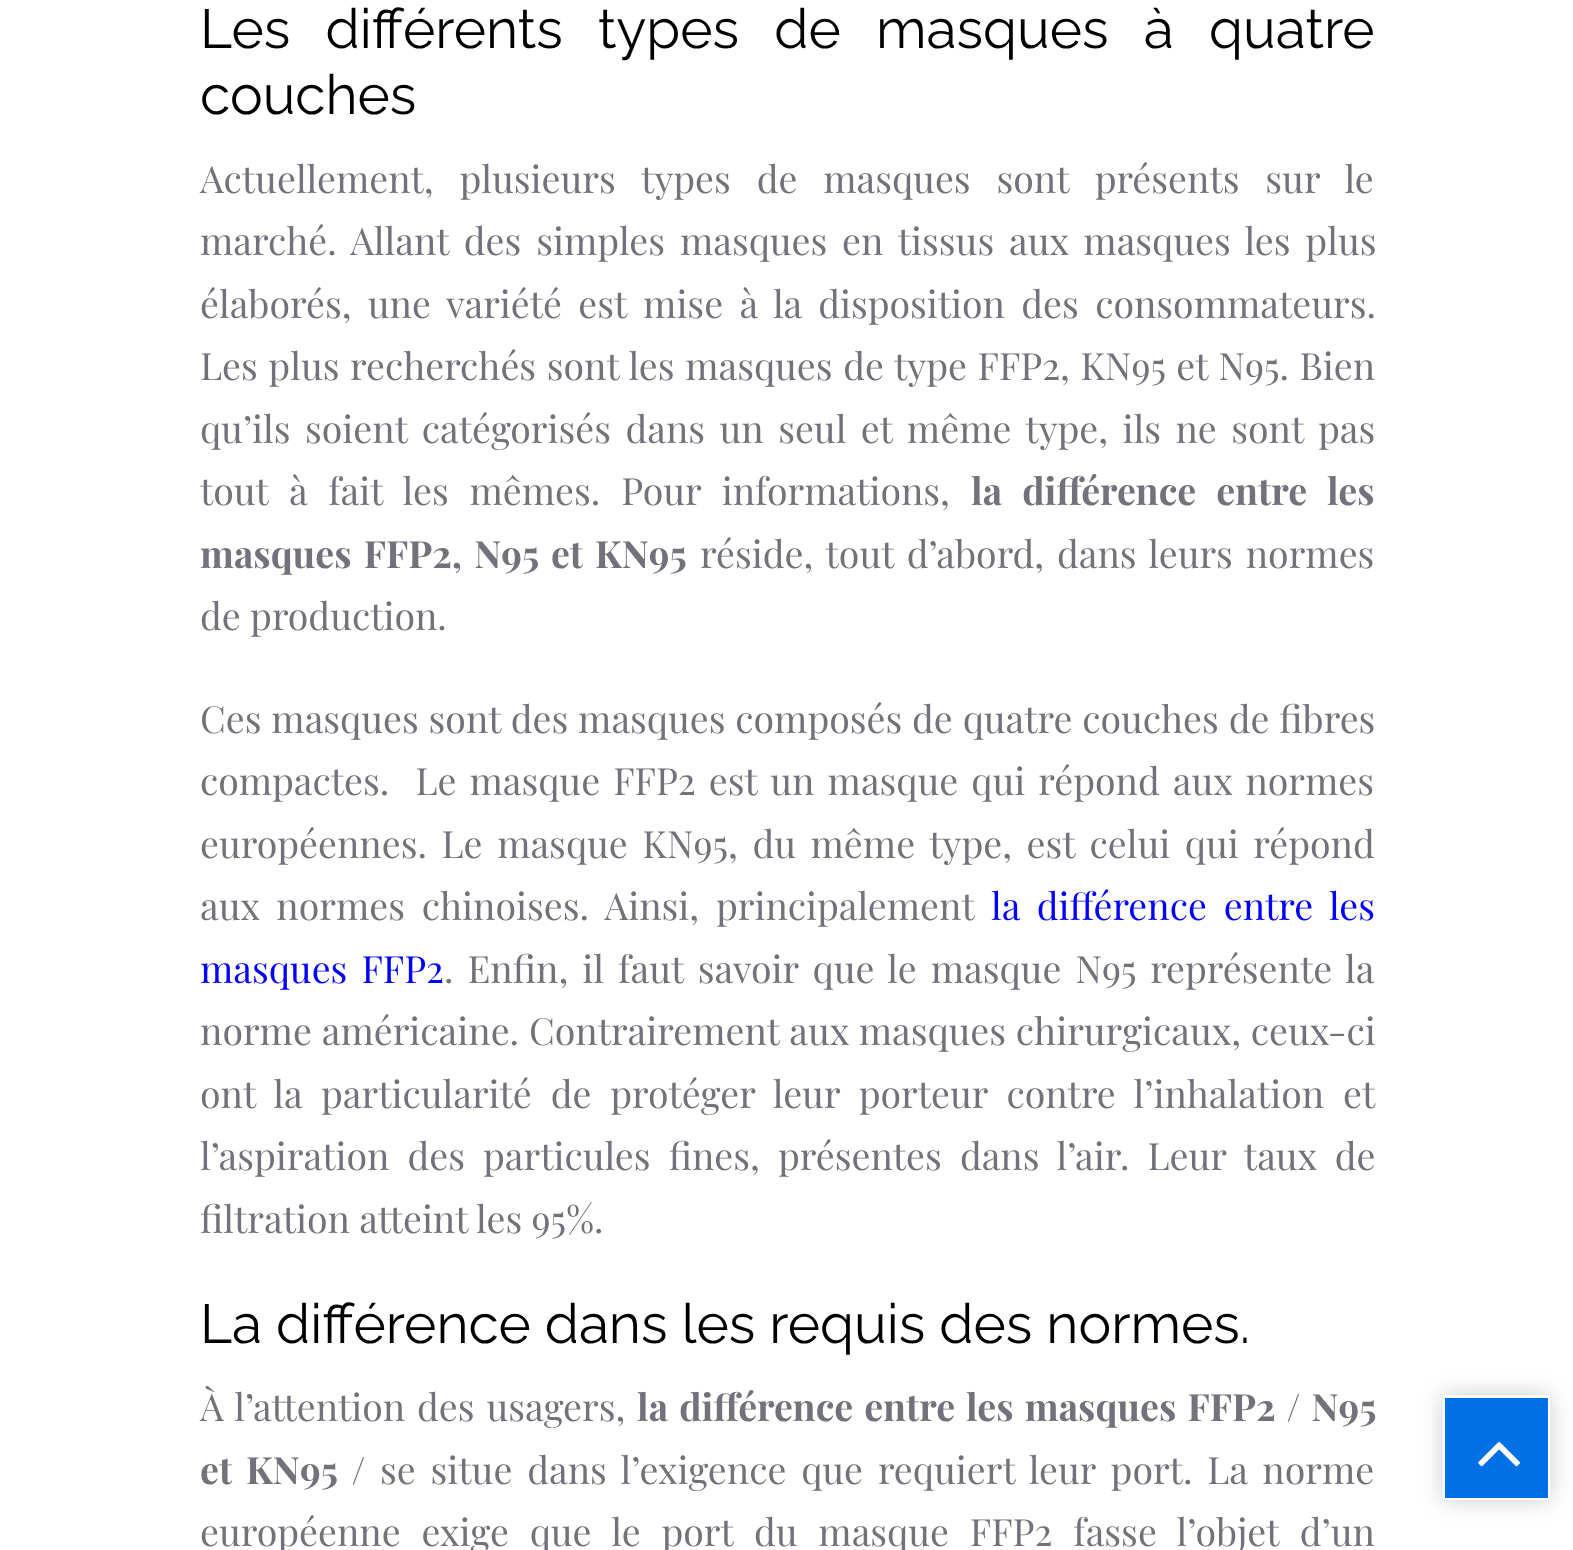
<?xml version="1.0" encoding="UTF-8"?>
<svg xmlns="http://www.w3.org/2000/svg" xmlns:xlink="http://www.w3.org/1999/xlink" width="1573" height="1550">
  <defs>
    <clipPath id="clip1"><path d="M 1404 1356 h 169 v 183 h -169 z m 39 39 h 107 v 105 h -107 z" clip-rule="evenodd" /></clipPath>
  </defs>
  <rect width="100%" height="100%" fill="#ffffff" />
  <g clip-path="url(#clip1)">
    <rect x="1443" y="1395" width="107" height="105" fill="#000000" fill-opacity="0.2" filter="blur(12.5px)" />
  </g>
  <rect x="1445" y="1398" width="103" height="100" fill="#0070e4" />
  <image x="1478" y="1441" width="42" height="26" xlink:href="image1.png" />
  <text x="200" y="48" word-spacing="21.25" style="font-family: Raleway; font-size: 55px; fill: #000000">Les différents types de masques à quatre</text>
  <text x="200" y="114" style="font-family: Raleway; font-size: 55px; fill: #000000">couches</text>
  <text x="200" y="193" word-spacing="16.5" style="font-family: Playfair Display; font-size: 37.5px; fill: #73717b">Actuellement, plusieurs types de masques sont présents sur le</text>
  <text x="200" y="255" word-spacing="5.5" style="font-family: Playfair Display; font-size: 37.5px; fill: #73717b">marché. Allant des simples masques en tissus aux masques les plus</text>
  <text x="200" y="318" word-spacing="7" style="font-family: Playfair Display; font-size: 37.5px; fill: #73717b">élaborés, une variété est mise à la disposition des consommateurs.</text>
  <text x="200" y="380" word-spacing="1.25" style="font-family: Playfair Display; font-size: 37.5px; fill: #73717b">Les plus recherchés sont les masques de type FFP2, KN95 et N95. Bien</text>
  <text x="200" y="443" word-spacing="5.1" style="font-family: Playfair Display; font-size: 37.5px; fill: #73717b">qu’ils soient catégorisés dans un seul et même type, ils ne sont pas</text>
  <text x="200" y="505" word-spacing="11.5" style="font-family: Playfair Display; font-size: 37.5px; fill: #73717b">tout à fait les mêmes. Pour informations,</text>
  <text x="971" y="505" word-spacing="11.5" style="font-family: Playfair Display; font-size: 37.5px; font-weight: bold; fill: #73717b">la différence entre les</text>
  <text x="200" y="568" word-spacing="3.5" style="font-family: Playfair Display; font-size: 37.5px; font-weight: bold; fill: #73717b">masques FFP2, N95 et KN95</text>
  <text x="700" y="568" word-spacing="3.5" style="font-family: Playfair Display; font-size: 37.5px; fill: #73717b">réside, tout d’abord, dans leurs normes</text>
  <text x="200" y="630" style="font-family: Playfair Display; font-size: 37.5px; fill: #73717b">de production.</text>
  <text x="200" y="733" word-spacing="0.5" style="font-family: Playfair Display; font-size: 37.5px; fill: #73717b">Ces masques sont des masques composés de quatre couches de fibres</text>
  <text x="200" y="795" word-spacing="3.75" style="font-family: Playfair Display; font-size: 37.5px; fill: #73717b" xml:space="preserve">compactes.  Le masque FFP2 est un masque qui répond aux normes</text>
  <text x="200" y="858" word-spacing="5.25" style="font-family: Playfair Display; font-size: 37.5px; fill: #73717b">européennes. Le masque KN95, du même type, est celui qui répond</text>
  <text x="200" y="920" word-spacing="7.5" style="font-family: Playfair Display; font-size: 37.5px; fill: #73717b">aux normes chinoises. Ainsi, principalement</text>
  <text x="991" y="920" word-spacing="7.5" style="font-family: Playfair Display; font-size: 37.5px; fill: #0000ff">la différence entre les</text>
  <text x="200" y="983" word-spacing="4.75" style="font-family: Playfair Display; font-size: 37.5px; fill: #0000ff">masques FFP2</text>
  <text x="444" y="983" word-spacing="4.75" style="font-family: Playfair Display; font-size: 37.5px; fill: #73717b">. Enfin, il faut savoir que le masque N95 représente la</text>
  <text x="200" y="1045" word-spacing="0.5" style="font-family: Playfair Display; font-size: 37.5px; fill: #73717b">norme américaine. Contrairement aux masques chirurgicaux, ceux-ci</text>
  <text x="200" y="1108" word-spacing="9.5" style="font-family: Playfair Display; font-size: 37.5px; fill: #73717b">ont la particularité de protéger leur porteur contre l’inhalation et</text>
  <text x="200" y="1170" word-spacing="8.75" style="font-family: Playfair Display; font-size: 37.5px; fill: #73717b">l’aspiration des particules fines, présentes dans l’air. Leur taux de</text>
  <text x="200" y="1233" style="font-family: Playfair Display; font-size: 37.5px; fill: #73717b">filtration atteint les 95%.</text>
  <text x="200" y="1343" style="font-family: Raleway; font-size: 55px; fill: #000000">La différence dans les requis des normes.</text>
  <text x="200" y="1421" word-spacing="2.5" style="font-family: Playfair Display; font-size: 37.5px; fill: #73717b">À l’attention des usagers,</text>
  <text x="637" y="1421" word-spacing="2.5" style="font-family: Playfair Display; font-size: 37.5px; font-weight: bold; fill: #73717b">la différence entre les masques FFP2 / N95</text>
  <text x="200" y="1484" word-spacing="5.5" style="font-family: Playfair Display; font-size: 37.5px; font-weight: bold; fill: #73717b">et KN95 /</text>
  <text x="380" y="1484" word-spacing="5.5" style="font-family: Playfair Display; font-size: 37.5px; fill: #73717b">se situe dans l’exigence que requiert leur port. La norme</text>
  <text x="200" y="1546" word-spacing="11.5" style="font-family: Playfair Display; font-size: 37.5px; fill: #73717b">européenne exige que le port du masque FFP2 fasse l’objet d’un</text>
</svg>
